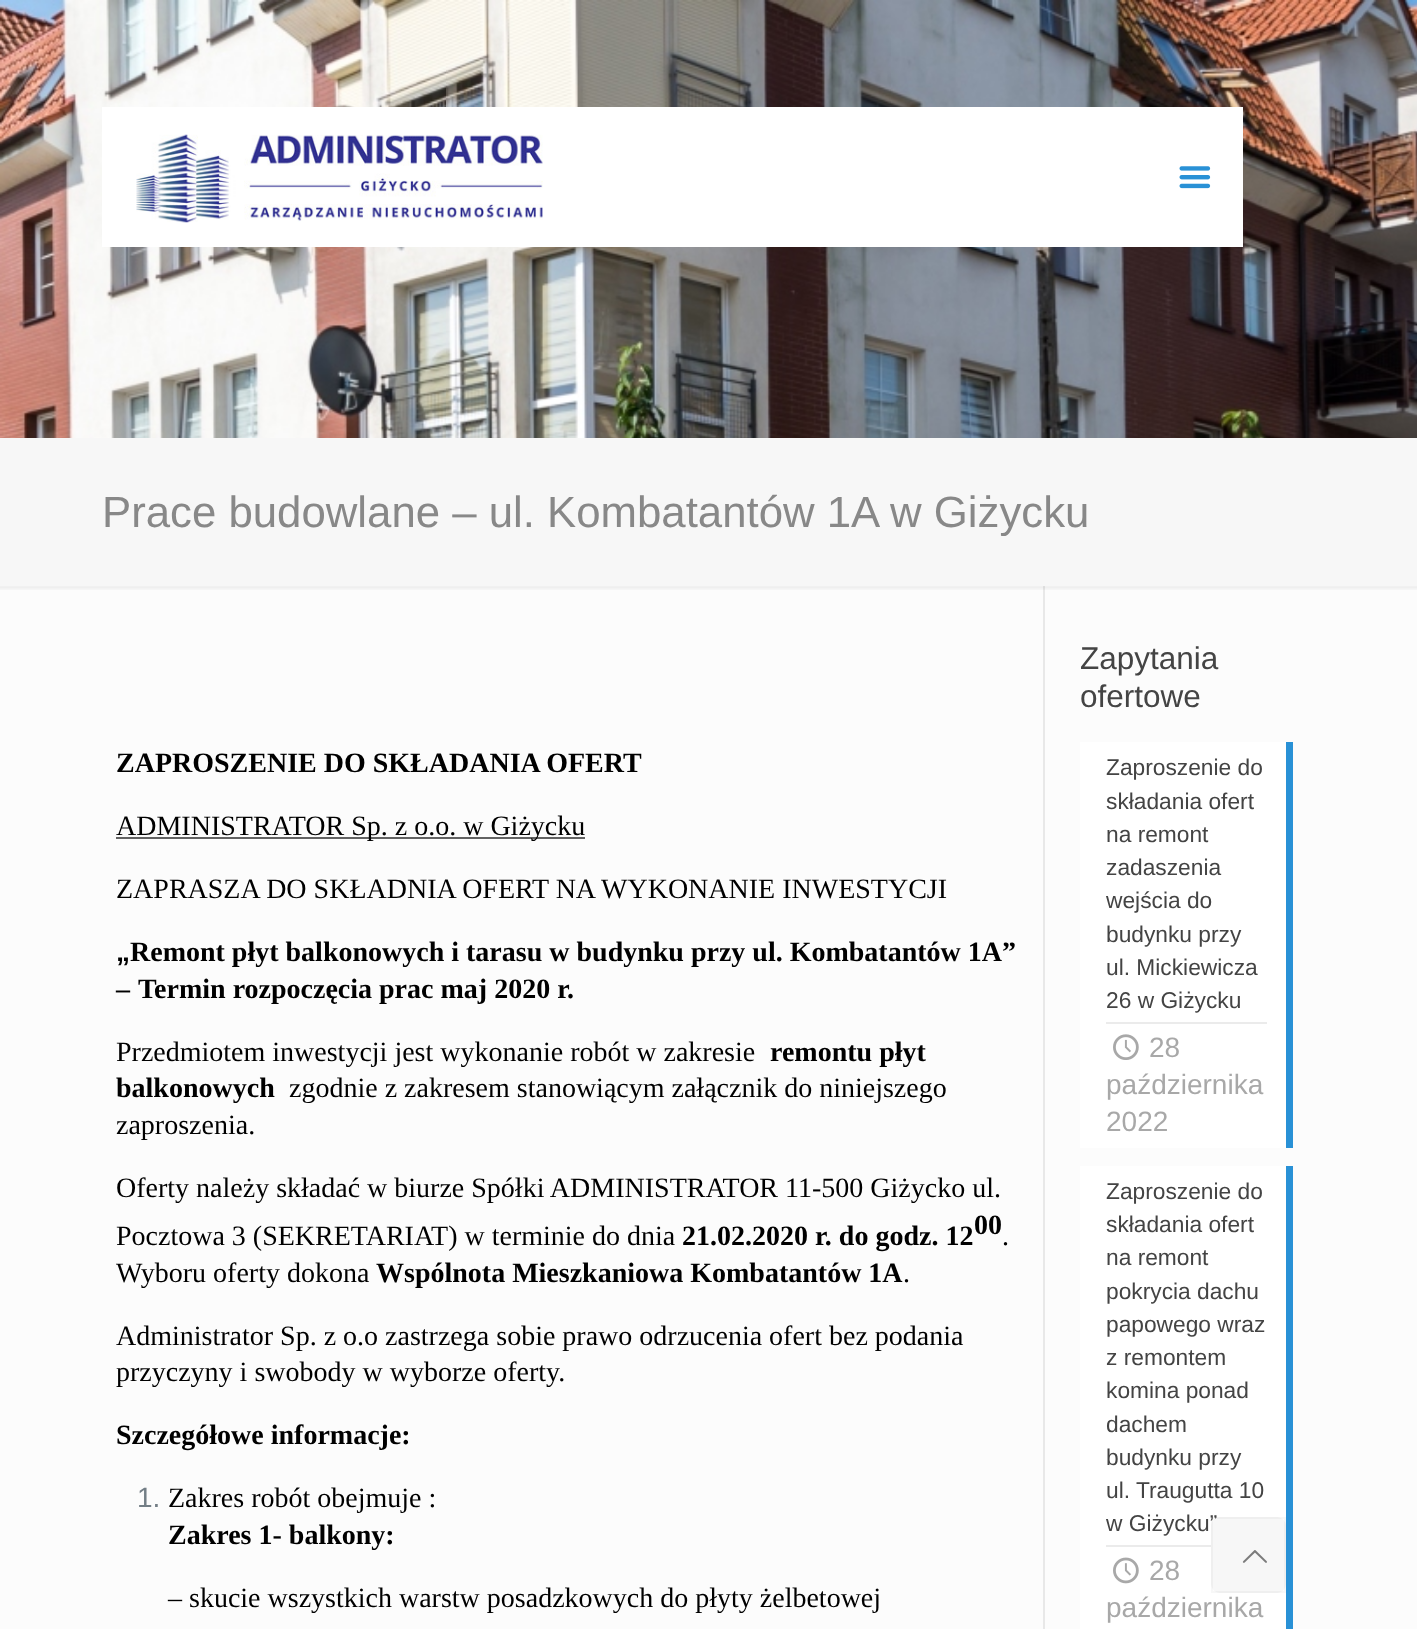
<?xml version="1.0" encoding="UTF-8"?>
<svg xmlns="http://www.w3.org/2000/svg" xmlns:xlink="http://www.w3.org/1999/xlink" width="1417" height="1629">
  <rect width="100%" height="100%" fill="#fcfcfc" />
  <image x="0" y="0" width="1417" height="438" xlink:href="image1.png" />
  <rect x="102" y="107" width="1141" height="140" fill="#ffffff" />
  <image x="136" y="134" width="407" height="89" xlink:href="image2.png" />
  <image x="1179" y="166" width="32" height="23" xlink:href="image3.png" />
  <rect y="438" width="1417" height="148" fill="#f7f7f7" />
  <rect x="1043" y="586" width="2" height="1043" fill="#e8e8e8" />
  <image x="0" y="586" width="1417" height="4" xlink:href="image4.png" />
  <rect x="116" y="837" width="469" height="2" fill="#626262" />
  <rect x="1080" y="742" width="206" height="406" fill="#ffffff" />
  <rect x="1106" y="1022" width="161" height="2" fill="#ebebeb" />
  <rect x="1286" y="742" width="7" height="406" fill="#2991d6" />
  <image x="1113" y="1034" width="26" height="26" xlink:href="image5.png" />
  <rect x="1080" y="1166" width="206" height="463" fill="#ffffff" />
  <rect x="1106" y="1545" width="105" height="2" fill="#ebebeb" />
  <rect x="1286" y="1166" width="7" height="463" fill="#2991d6" />
  <image x="1113" y="1557" width="26" height="27" xlink:href="image6.png" />
  <text x="102" y="527" style="font-family: Liberation Sans; font-size: 43.75px; fill: #888888">Prace budowlane – ul. Kombatantów 1A w Giżycku</text>
  <text x="116" y="772" style="font-family: Liberation Serif; font-size: 28px; font-weight: bold; fill: #000000">ZAPROSZENIE DO SKŁADANIA OFERT</text>
  <text x="116" y="835" style="font-family: Liberation Serif; font-size: 28px; fill: #000000">ADMINISTRATOR Sp. z o.o. w Giżycku</text>
  <text x="116" y="898" style="font-family: Liberation Serif; font-size: 28px; fill: #000000">ZAPRASZA DO SKŁADNIA OFERT NA WYKONANIE INWESTYCJI</text>
  <text x="116" y="961" style="font-family: Liberation Sans; font-size: 28px; font-weight: bold; fill: #000000">„</text>
  <text x="130" y="961" style="font-family: Liberation Serif; font-size: 28px; font-weight: bold; fill: #000000">Remont płyt balkonowych i tarasu w budynku przy ul. Kombatantów 1A”</text>
  <text x="116" y="998" style="font-family: Liberation Serif; font-size: 28px; font-weight: bold; fill: #000000">–</text>
  <text x="138" y="998" style="font-family: Liberation Serif; font-size: 28px; font-weight: bold; fill: #000000">Termin rozpoczęcia prac maj 2020 r.</text>
  <text x="116" y="1061" style="font-family: Liberation Serif; font-size: 28px; fill: #000000">Przedmiotem inwestycji jest wykonanie robót w zakresie</text>
  <text x="770" y="1061" style="font-family: Liberation Serif; font-size: 28px; font-weight: bold; fill: #000000">remontu płyt</text>
  <text x="116" y="1097" style="font-family: Liberation Serif; font-size: 28px; font-weight: bold; fill: #000000">balkonowych</text>
  <text x="289" y="1097" style="font-family: Liberation Serif; font-size: 28px; fill: #000000">zgodnie z zakresem stanowiącym załącznik do niniejszego</text>
  <text x="116" y="1134" style="font-family: Liberation Serif; font-size: 28px; fill: #000000">zaproszenia.</text>
  <text x="116" y="1197" style="font-family: Liberation Serif; font-size: 28px; fill: #000000">Oferty należy składać w biurze Spółki ADMINISTRATOR 11-500 Giżycko ul.</text>
  <text x="116" y="1245" style="font-family: Liberation Serif; font-size: 28px; fill: #000000">Pocztowa 3 (SEKRETARIAT) w terminie do dnia</text>
  <text x="682" y="1245" style="font-family: Liberation Serif; font-size: 28px; font-weight: bold; fill: #000000">21.02.2020 r. do godz. 12</text>
  <text x="974" y="1234" style="font-family: Liberation Serif; font-size: 28px; font-weight: bold; fill: #000000">00</text>
  <text x="1002" y="1245" style="font-family: Liberation Serif; font-size: 28px; fill: #000000">.</text>
  <text x="116" y="1282" style="font-family: Liberation Serif; font-size: 28px; fill: #000000">Wyboru oferty dokona</text>
  <text x="376" y="1282" style="font-family: Liberation Serif; font-size: 28px; font-weight: bold; fill: #000000">Wspólnota Mieszkaniowa Kombatantów 1A</text>
  <text x="903" y="1282" style="font-family: Liberation Serif; font-size: 28px; fill: #000000">.</text>
  <text x="116" y="1345" style="font-family: Liberation Serif; font-size: 28px; fill: #000000">Administrator Sp. z o.o zastrzega sobie prawo odrzucenia ofert bez podania</text>
  <text x="116" y="1381" style="font-family: Liberation Serif; font-size: 28px; fill: #000000">przyczyny i swobody w wyborze oferty.</text>
  <text x="116" y="1444" style="font-family: Liberation Serif; font-size: 28px; font-weight: bold; fill: #000000">Szczegółowe informacje:</text>
  <text x="137" y="1507" style="font-family: Liberation Sans; font-size: 28px; fill: #737e86">1.</text>
  <text x="168" y="1507" style="font-family: Liberation Serif; font-size: 28px; fill: #000000">Zakres robót obejmuje :</text>
  <text x="168" y="1544" style="font-family: Liberation Serif; font-size: 28px; font-weight: bold; fill: #000000">Zakres 1- balkony:</text>
  <text x="168" y="1607" style="font-family: Liberation Serif; font-size: 28px; fill: #000000">– skucie wszystkich warstw posadzkowych do płyty żelbetowej</text>
  <text x="1080" y="669" style="font-family: Liberation Sans; font-size: 31.5px; fill: #444444">Zapytania</text>
  <text x="1080" y="707" style="font-family: Liberation Sans; font-size: 31.5px; fill: #444444">ofertowe</text>
  <text x="1106" y="775" style="font-family: Liberation Sans; font-size: 22.75px; fill: #444444">Zaproszenie do</text>
  <text x="1106" y="809" style="font-family: Liberation Sans; font-size: 22.75px; fill: #444444">składania ofert</text>
  <text x="1106" y="842" style="font-family: Liberation Sans; font-size: 22.75px; fill: #444444">na remont</text>
  <text x="1106" y="875" style="font-family: Liberation Sans; font-size: 22.75px; fill: #444444">zadaszenia</text>
  <text x="1106" y="908" style="font-family: Liberation Sans; font-size: 22.75px; fill: #444444">wejścia do</text>
  <text x="1106" y="942" style="font-family: Liberation Sans; font-size: 22.75px; fill: #444444">budynku przy</text>
  <text x="1106" y="975" style="font-family: Liberation Sans; font-size: 22.75px; fill: #444444">ul. Mickiewicza</text>
  <text x="1106" y="1008" style="font-family: Liberation Sans; font-size: 22.75px; fill: #444444">26 w Giżycku</text>
  <text x="1149" y="1057" style="font-family: Liberation Sans; font-size: 28px; fill: #a8a8a8">28</text>
  <text x="1106" y="1094" style="font-family: Liberation Sans; font-size: 28px; fill: #a8a8a8">października</text>
  <text x="1106" y="1131" style="font-family: Liberation Sans; font-size: 28px; fill: #a8a8a8">2022</text>
  <text x="1106" y="1199" style="font-family: Liberation Sans; font-size: 22.75px; fill: #444444">Zaproszenie do</text>
  <text x="1106" y="1232" style="font-family: Liberation Sans; font-size: 22.75px; fill: #444444">składania ofert</text>
  <text x="1106" y="1265" style="font-family: Liberation Sans; font-size: 22.75px; fill: #444444">na remont</text>
  <text x="1106" y="1299" style="font-family: Liberation Sans; font-size: 22.75px; fill: #444444">pokrycia dachu</text>
  <text x="1106" y="1332" style="font-family: Liberation Sans; font-size: 22.75px; fill: #444444">papowego wraz</text>
  <text x="1106" y="1365" style="font-family: Liberation Sans; font-size: 22.75px; fill: #444444">z remontem</text>
  <text x="1106" y="1398" style="font-family: Liberation Sans; font-size: 22.75px; fill: #444444">komina ponad</text>
  <text x="1106" y="1432" style="font-family: Liberation Sans; font-size: 22.75px; fill: #444444">dachem</text>
  <text x="1106" y="1465" style="font-family: Liberation Sans; font-size: 22.75px; fill: #444444">budynku przy</text>
  <text x="1106" y="1498" style="font-family: Liberation Sans; font-size: 22.75px; fill: #444444">ul. Traugutta 10</text>
  <text x="1106" y="1531" style="font-family: Liberation Sans; font-size: 22.75px; fill: #444444">w Giżycku”</text>
  <text x="1149" y="1580" style="font-family: Liberation Sans; font-size: 28px; fill: #a8a8a8">28</text>
  <text x="1106" y="1617" style="font-family: Liberation Sans; font-size: 28px; fill: #a8a8a8">października</text>
  <rect x="1211" y="1517" width="75" height="76" rx="9" fill="#f7f7f7" />
  <rect x="1212" y="1518" width="73" height="74" fill="none" stroke="#000000" stroke-opacity="0.03" stroke-width="2" />
  <image x="1242" y="1550" width="25" height="13" xlink:href="image7.png" />
</svg>
